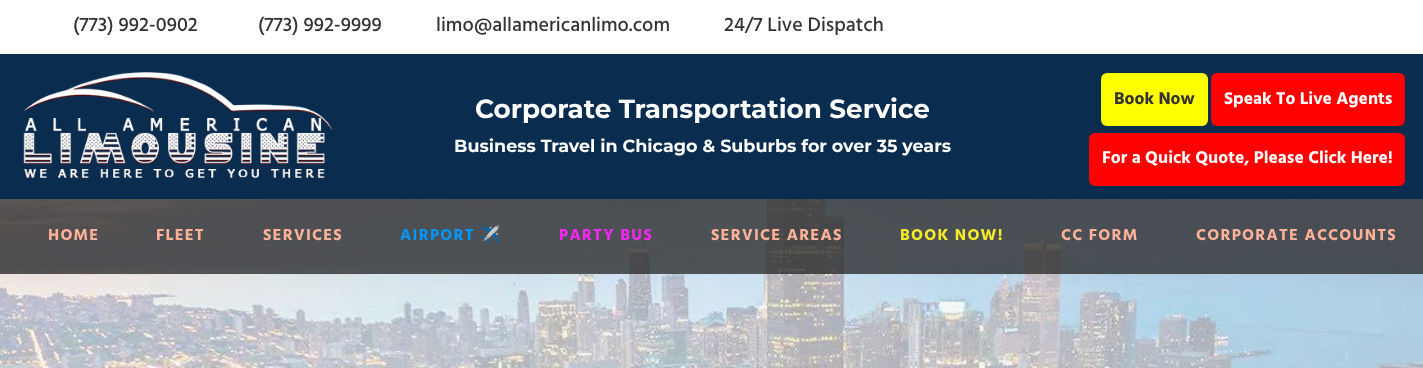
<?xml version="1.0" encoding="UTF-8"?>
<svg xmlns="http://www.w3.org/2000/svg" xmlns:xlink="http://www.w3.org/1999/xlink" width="1423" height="368">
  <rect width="100%" height="100%" fill="#ffffff" />
  <rect y="54" width="1423" height="145" fill="#0a2c4e" />
  <image x="22" y="72" width="311" height="107" xlink:href="image1.png" />
  <rect x="1101" y="73" width="107" height="53" rx="6" fill="#ffff00" />
  <rect x="1211" y="73" width="194" height="53" rx="6" fill="#ff0000" />
  <rect x="1089" y="133" width="316" height="53" rx="6" fill="#ff0000" />
  <image x="0" y="199" width="1423" height="169" xlink:href="image2.png" />
  <rect y="199" width="1423" height="75" fill="#232323" fill-opacity="0.75" />
  <text x="73" y="31" style="font-family: Hind; font-size: 20px; font-weight: 500; fill: #333333">(773) 992-0902</text>
  <text x="258" y="31" style="font-family: Hind; font-size: 20px; font-weight: 500; fill: #333333">(773) 992-9999</text>
  <text x="436" y="31" style="font-family: Hind; font-size: 20px; font-weight: 500; fill: #333333">limo@allamericanlimo.com</text>
  <text x="724" y="31" style="font-family: Hind; font-size: 20px; font-weight: 500; fill: #333333">24/7 Live Dispatch</text>
  <text x="475" y="118" style="font-family: Montserrat; font-size: 26.25px; font-weight: bold; fill: #ffffff">Corporate Transportation Service</text>
  <text x="454" y="152" style="font-family: Montserrat; font-size: 17.5px; font-weight: bold; fill: #ffffff">Business Travel in Chicago &amp; Suburbs for over 35 years</text>
  <text x="1114" y="104" style="font-family: Hind; font-size: 17.5px; font-weight: bold; fill: #333333">Book Now</text>
  <text x="1224" y="104" style="font-family: Hind; font-size: 17.5px; font-weight: bold; fill: #ffffff">Speak To Live Agents</text>
  <text x="1102" y="163" style="font-family: Hind; font-size: 17.5px; font-weight: bold; fill: #ffffff">For a Quick Quote, Please Click Here!</text>
  <text x="48" y="240" style="font-family: Hind; font-size: 16.25px; font-weight: bold; letter-spacing: 1.25px; fill: #ffb298">HOME</text>
  <text x="156" y="240" style="font-family: Hind; font-size: 16.25px; font-weight: bold; letter-spacing: 1.25px; fill: #ffb298">FLEET</text>
  <text x="263" y="240" style="font-family: Hind; font-size: 16.25px; font-weight: bold; letter-spacing: 1.25px; fill: #ffb298">SERVICES</text>
  <text x="400" y="240" style="font-family: Hind; font-size: 16.25px; font-weight: bold; letter-spacing: 1.25px; fill: #0096ff">AIRPORT</text>
  <text x="480" y="240" style="font-family: Noto Color Emoji; font-size: 16.25px; font-weight: bold; letter-spacing: 1.25px; fill: #0096ff">✈️</text>
  <text x="559" y="240" style="font-family: Hind; font-size: 16.25px; font-weight: bold; letter-spacing: 1.25px; fill: #f527f5">PARTY BUS</text>
  <text x="711" y="240" style="font-family: Hind; font-size: 16.25px; font-weight: bold; letter-spacing: 1.25px; fill: #ffb298">SERVICE AREAS</text>
  <text x="900" y="240" style="font-family: Hind; font-size: 16.25px; font-weight: bold; letter-spacing: 1.25px; fill: #f5eb27">BOOK NOW!</text>
  <text x="1061" y="240" style="font-family: Hind; font-size: 16.25px; font-weight: bold; letter-spacing: 1.25px; fill: #ffb298">CC FORM</text>
  <text x="1196" y="240" style="font-family: Hind; font-size: 16.25px; font-weight: bold; letter-spacing: 1.25px; fill: #ffb298">CORPORATE ACCOUNTS</text>
</svg>
